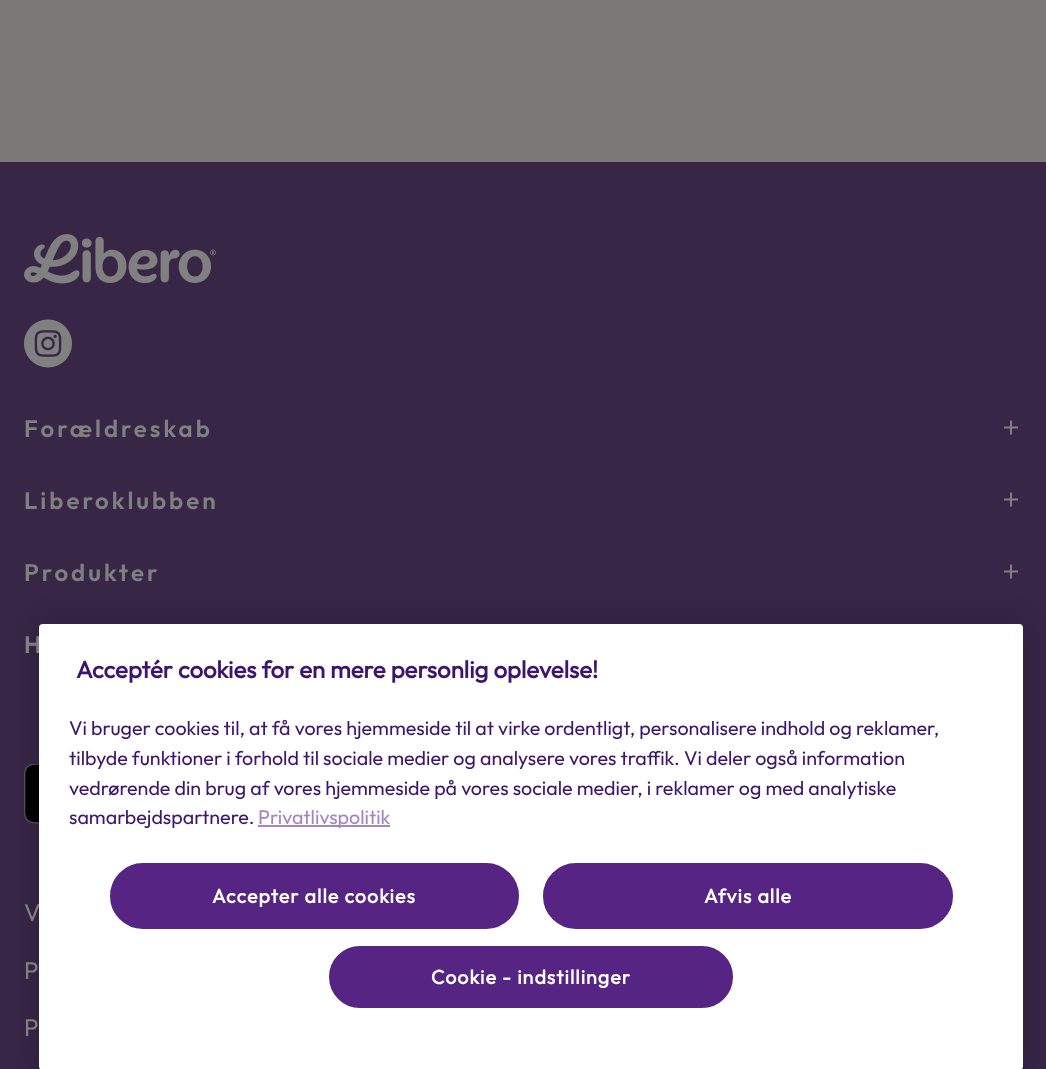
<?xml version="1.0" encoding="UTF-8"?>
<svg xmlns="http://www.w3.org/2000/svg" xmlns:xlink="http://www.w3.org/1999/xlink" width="1046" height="1069">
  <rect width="100%" height="100%" fill="#7b7876" />
  <rect y="162" width="1046" height="907" fill="#372646" />
  <image x="24" y="234" width="192" height="50" xlink:href="image1.png" />
  <image x="24" y="319" width="48" height="49" xlink:href="image2.png" />
  <image x="1004" y="420" width="14" height="15" xlink:href="image3.png" />
  <image x="1004" y="492" width="14" height="15" xlink:href="image3.png" />
  <image x="1004" y="564" width="14" height="15" xlink:href="image3.png" />
  <image x="24" y="764" width="15" height="60" xlink:href="image4.png" />
  <rect x="39" y="624" width="984" height="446" rx="4" fill="#000000" fill-opacity="0.2" filter="blur(13.5px)" />
  <text x="24" y="437" style="font-family: Outfit; font-size: 24px; font-weight: 600; letter-spacing: 3px; fill: #808080">Forældreskab</text>
  <text x="24" y="509" style="font-family: Outfit; font-size: 24px; font-weight: 600; letter-spacing: 3px; fill: #808080">Liberoklubben</text>
  <text x="24" y="581" style="font-family: Outfit; font-size: 24px; font-weight: 600; letter-spacing: 3px; fill: #808080">Produkter</text>
  <text x="24" y="653" style="font-family: Outfit; font-size: 24px; font-weight: 600; letter-spacing: 3px; fill: #808080">H</text>
  <text x="24" y="921" style="font-family: Outfit; font-size: 24px; fill: #808080">V</text>
  <text x="24" y="979" style="font-family: Outfit; font-size: 24px; fill: #808080">P</text>
  <text x="24" y="1036" style="font-family: Outfit; font-size: 24px; fill: #808080">P</text>
  <rect x="39" y="624" width="984" height="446" rx="4" fill="#ffffff" />
  <text x="76" y="678" style="font-family: Outfit; font-size: 24px; font-weight: bold; fill: #3d156d">Acceptér cookies for en mere personlig oplevelse!</text>
  <text x="69" y="735" style="font-family: Outfit; font-size: 19.7px; fill: #3d156d">Vi bruger cookies til, at få vores hjemmeside til at virke ordentligt, personalisere indhold og reklamer,</text>
  <text x="69" y="765" style="font-family: Outfit; font-size: 19.7px; fill: #3d156d">tilbyde funktioner i forhold til sociale medier og analysere vores traffik. Vi deler også information</text>
  <text x="69" y="795" style="font-family: Outfit; font-size: 19.7px; fill: #3d156d">vedrørende din brug af vores hjemmeside på vores sociale medier, i reklamer og med analytiske</text>
  <text x="69" y="824" style="font-family: Outfit; font-size: 19.7px; fill: #3d156d">samarbejdspartnere.</text>
  <rect x="258" y="825" width="132" height="2" fill="#a485c1" />
  <text x="258" y="824" style="font-family: Outfit; font-size: 19.7px; fill: #a485c1">Privatlivspolitik</text>
  <rect x="111" y="864" width="407" height="64" rx="32" fill="#562483" stroke="#562483" stroke-width="2" />
  <text x="212" y="903" style="font-family: Outfit; font-size: 19.7px; font-weight: bold; letter-spacing: 1px; fill: #ffffff">Accepter alle cookies</text>
  <rect x="544" y="864" width="408" height="64" rx="32" fill="#562483" stroke="#562483" stroke-width="2" />
  <text x="704" y="903" style="font-family: Outfit; font-size: 19.7px; font-weight: bold; letter-spacing: 1px; fill: #ffffff">Afvis alle</text>
  <rect x="328" y="945" width="406" height="64" rx="32" fill="#562483" stroke="#ffffff" stroke-width="2" />
  <text x="431" y="984" style="font-family: Outfit; font-size: 19.7px; font-weight: bold; letter-spacing: 1px; fill: #ffffff">Cookie - indstillinger</text>
</svg>
